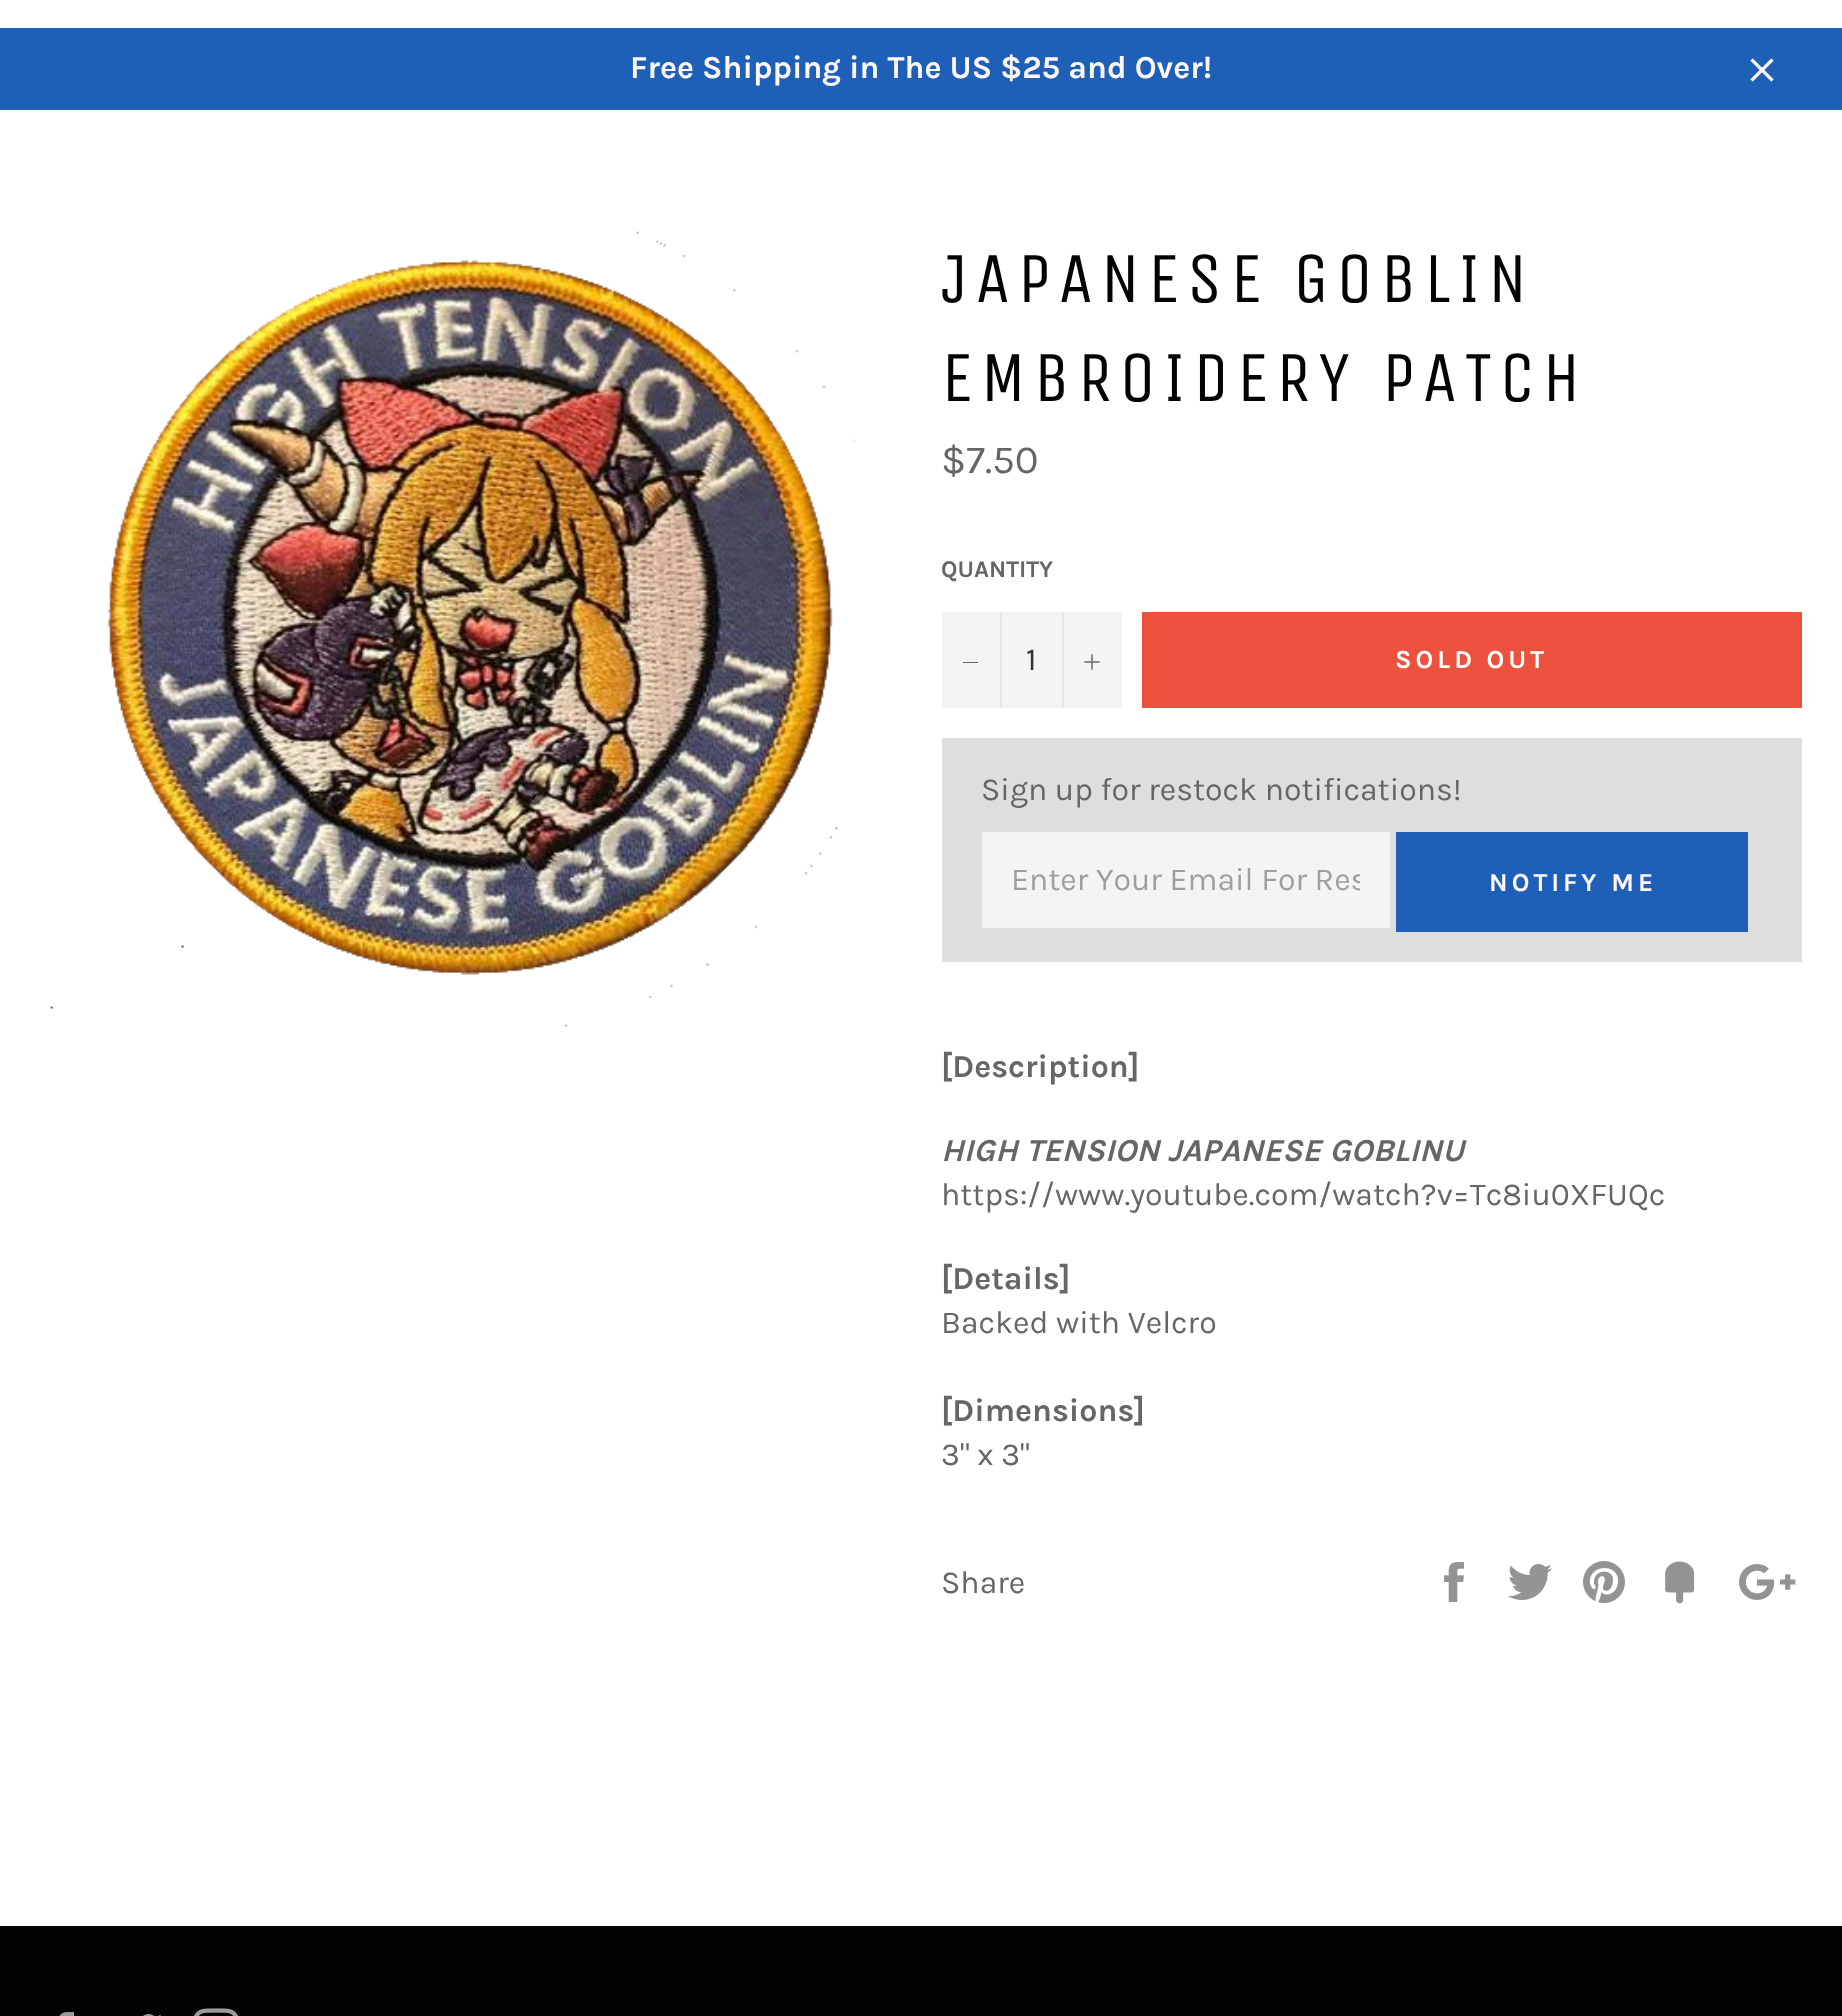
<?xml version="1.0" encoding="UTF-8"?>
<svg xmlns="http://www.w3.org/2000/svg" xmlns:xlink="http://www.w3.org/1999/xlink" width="1842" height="2016">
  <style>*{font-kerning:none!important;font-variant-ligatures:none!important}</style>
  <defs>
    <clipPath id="clip1"><rect x="1012" y="860" width="348" height="38" /></clipPath>
  </defs>
  <rect width="100%" height="100%" fill="#ffffff" />
  <rect y="28" width="1842" height="82" fill="#1e60b7" />
  <image x="1750" y="58" width="24" height="24" xlink:href="image1.png" />
  <image x="50" y="231" width="806" height="796" xlink:href="image2.png" />
  <rect x="942" y="612" width="180" height="96" fill="#f4f4f4" />
  <rect x="1000" y="612" width="2" height="96" fill="#e7e7e7" />
  <rect x="963" y="662" width="15" height="1" fill="#666666" />
  <rect x="1062" y="612" width="2" height="96" fill="#e7e7e7" />
  <image x="1084" y="654" width="16" height="16" xlink:href="image3.png" />
  <rect x="1142" y="612" width="660" height="96" fill="#ec523e" />
  <rect x="942" y="738" width="860" height="224" fill="#dedede" />
  <rect x="982" y="832" width="408" height="96" fill="#f4f4f4" />
  <rect x="1396" y="832" width="352" height="100" fill="#1e60b7" />
  <image x="1444" y="1562" width="20" height="40" xlink:href="image4.png" />
  <image x="1508" y="1564" width="44" height="36" xlink:href="image5.png" />
  <image x="1583" y="1561" width="42" height="42" xlink:href="image6.png" />
  <image x="1665" y="1561" width="30" height="43" xlink:href="image7.png" />
  <image x="1739" y="1564" width="57" height="36" xlink:href="image8.png" />
  <rect y="1926" width="1842" height="90" fill="#030303" />
  <image x="59" y="2012" width="15" height="4" xlink:href="image9.png" />
  <image x="120" y="2014" width="41" height="2" xlink:href="image10.png" />
  <image x="194" y="2008" width="44" height="8" xlink:href="image11.png" />
  <text x="630" y="78" style="font-family: Karla; font-size: 32px; font-weight: bold; fill: #fff7f7">Free Shipping in The US $25 and Over!</text>
  <text x="941" y="302" style="font-family: Unica One; font-size: 72px; letter-spacing: 7.25px; fill: #030303">JAPANESE GOBLIN</text>
  <text x="941" y="401" style="font-family: Unica One; font-size: 72px; letter-spacing: 7.25px; fill: #030303">EMBROIDERY PATCH</text>
  <text x="941" y="473" style="font-family: Karla; font-size: 40px; fill: #666666">$7.50</text>
  <text x="941" y="577" style="font-family: Karla; font-size: 24px; font-weight: bold; fill: #666666">QUANTITY</text>
  <text x="1026" y="670" style="font-family: Karla; font-size: 32px; fill: #333333">1</text>
  <text x="1395" y="668" style="font-family: Karla; font-size: 26px; font-weight: bold; letter-spacing: 4px; fill: #ffffff">SOLD OUT</text>
  <text x="981" y="800" style="font-family: Karla; font-size: 32px; fill: #666666">Sign up for restock notifications!</text>
  <g clip-path="url(#clip1)">
    <text x="1011" y="890" style="font-family: Karla; font-size: 32px; fill: #9f9f9f">Enter Your Email For Res</text>
  </g>
  <text x="1489" y="891" style="font-family: Karla; font-size: 26px; font-weight: bold; letter-spacing: 4px; fill: #fff7f7">NOTIFY ME</text>
  <text x="941" y="1077" style="font-family: Karla; font-size: 32px; font-weight: bold; fill: #666666">[Description]</text>
  <text x="941" y="1161" style="font-family: Karla; font-size: 32px; font-weight: bold; font-style: italic; fill: #666666">HIGH TENSION JAPANESE GOBLINU</text>
  <text x="941" y="1205" style="font-family: Karla; font-size: 32px; fill: #666666">https://www.youtube.com/watch?v=Tc8iu0XFUQc</text>
  <text x="941" y="1289" style="font-family: Karla; font-size: 32px; font-weight: bold; fill: #666666">[Details]</text>
  <text x="941" y="1333" style="font-family: Karla; font-size: 32px; fill: #666666">Backed with Velcro</text>
  <text x="941" y="1421" style="font-family: Karla; font-size: 32px; font-weight: bold; fill: #666666">[Dimensions]</text>
  <text x="941" y="1465" style="font-family: Karla; font-size: 32px; fill: #666666">3" x 3"</text>
  <text x="941" y="1593" style="font-family: Karla; font-size: 32px; fill: #666666">Share</text>
</svg>
